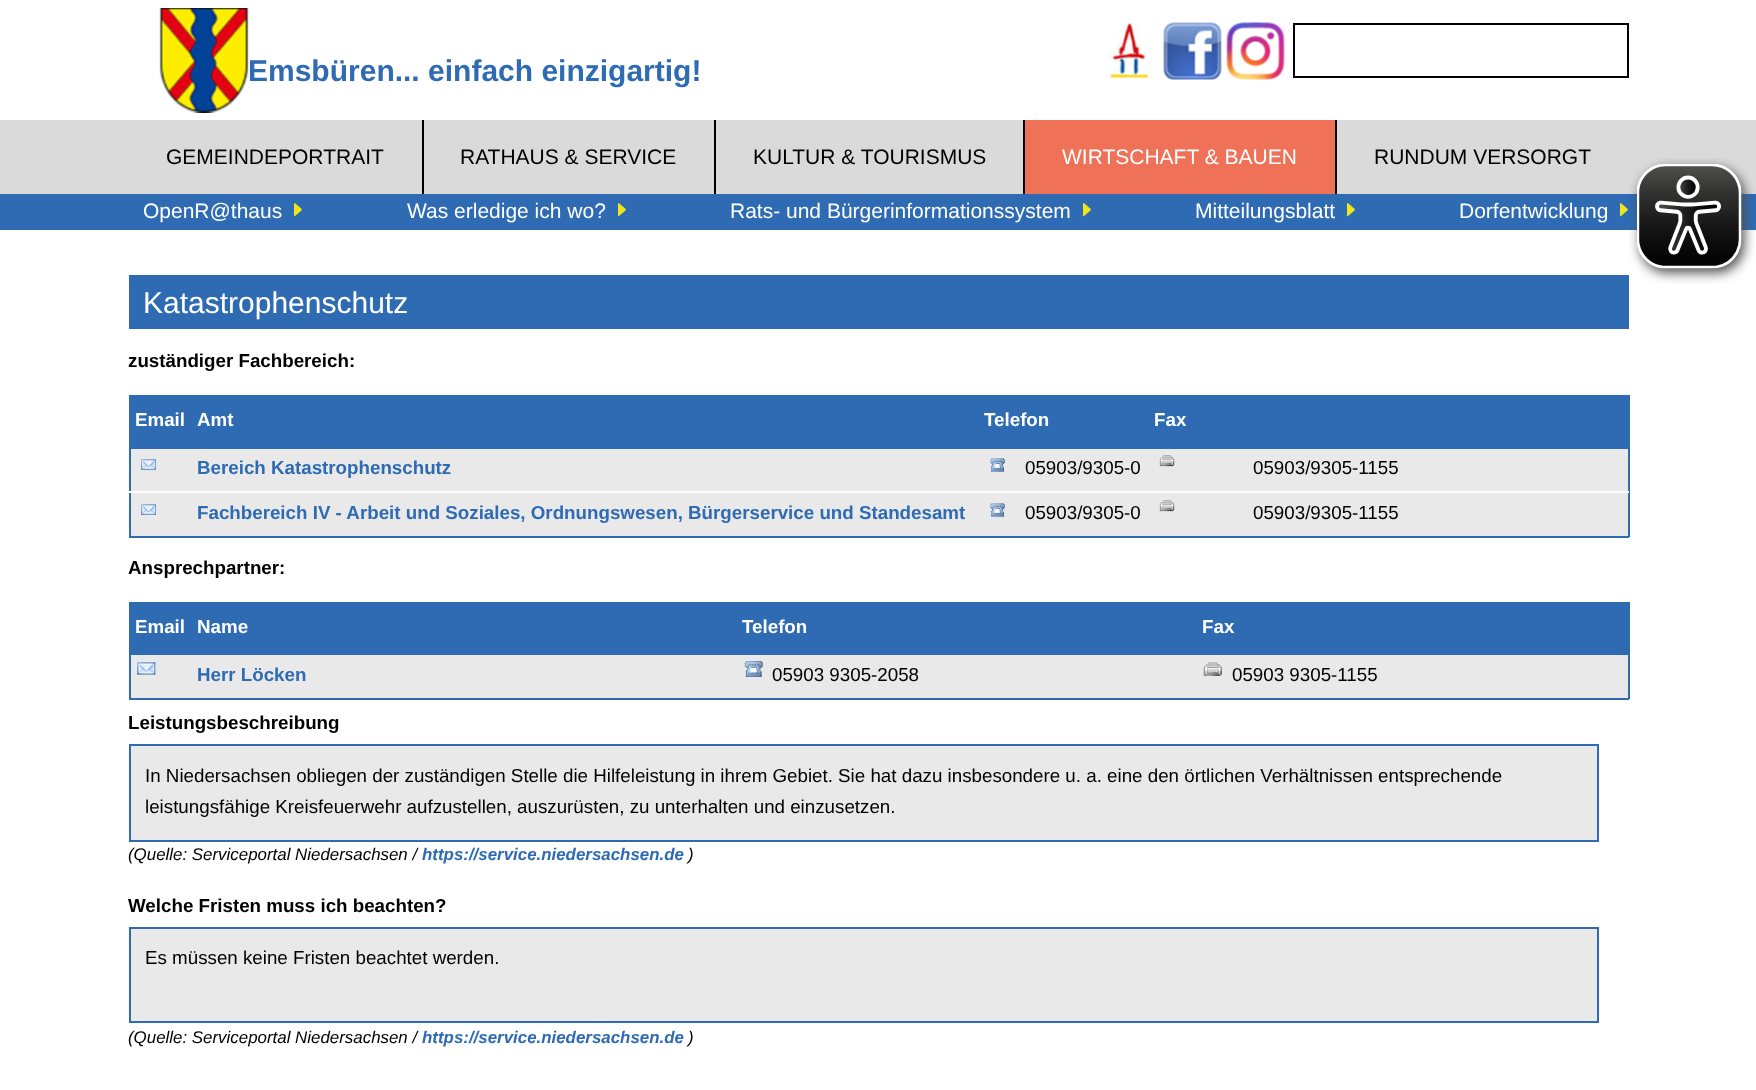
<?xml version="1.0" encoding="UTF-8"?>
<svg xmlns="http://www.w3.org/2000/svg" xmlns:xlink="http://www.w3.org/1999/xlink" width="1756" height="1090">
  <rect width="100%" height="100%" fill="#ffffff" />
  <image x="159" y="8" width="90" height="105" xlink:href="image1.png" />
  <image x="1108" y="22" width="46" height="58" xlink:href="image2.png" />
  <image x="1163" y="22" width="59" height="58" xlink:href="image3.png" />
  <image x="1226" y="22" width="59" height="58" xlink:href="image4.png" />
  <rect x="1294" y="24" width="334" height="53" fill="none" stroke="#000000" stroke-width="2" />
  <rect y="120" width="1756" height="74" fill="#dadada" />
  <rect x="422" y="120" width="2" height="74" fill="#000000" />
  <rect x="714" y="120" width="2" height="74" fill="#000000" />
  <rect x="1025" y="120" width="310" height="74" fill="#ee7158" />
  <rect x="1023" y="120" width="2" height="74" fill="#000000" />
  <rect x="1335" y="120" width="2" height="74" fill="#000000" />
  <rect y="194" width="1756" height="36" fill="#2e6bb3" />
  <image x="294" y="203" width="8" height="14" xlink:href="image5.png" />
  <image x="618" y="203" width="8" height="14" xlink:href="image5.png" />
  <image x="1083" y="203" width="8" height="14" xlink:href="image5.png" />
  <image x="1347" y="203" width="8" height="14" xlink:href="image5.png" />
  <image x="1620" y="203" width="8" height="14" xlink:href="image5.png" />
  <rect x="129" y="275" width="1500" height="54" fill="#2e6bb3" />
  <rect x="129" y="395" width="1500" height="2" fill="#2e6bb3" />
  <rect x="1628" y="395" width="2" height="142" fill="#2e6bb3" />
  <rect x="129" y="536" width="1500" height="2" fill="#2e6bb3" />
  <rect x="129" y="395" width="2" height="142" fill="#2e6bb3" />
  <rect x="131" y="397" width="1497" height="50" fill="#2e6bb3" />
  <rect x="129" y="447" width="1500" height="2" fill="#2e6bb3" />
  <rect x="131" y="449" width="1497" height="42" fill="#e9e9e9" />
  <image x="141" y="459" width="15" height="11" xlink:href="image6.png" />
  <image x="990" y="458" width="15" height="14" xlink:href="image7.png" />
  <image x="1159" y="455" width="16" height="12" xlink:href="image8.png" />
  <rect x="131" y="493" width="1497" height="43" fill="#e9e9e9" />
  <rect x="129" y="491" width="2" height="2" fill="#ffffff" />
  <image x="141" y="504" width="15" height="11" xlink:href="image6.png" />
  <image x="990" y="503" width="15" height="14" xlink:href="image7.png" />
  <image x="1159" y="500" width="16" height="12" xlink:href="image8.png" />
  <rect x="1628" y="491" width="1" height="2" fill="#ffffff" />
  <rect x="129" y="602" width="1500" height="2" fill="#2e6bb3" />
  <rect x="1628" y="602" width="2" height="97" fill="#2e6bb3" />
  <rect x="129" y="698" width="1500" height="2" fill="#2e6bb3" />
  <rect x="129" y="602" width="2" height="97" fill="#2e6bb3" />
  <rect x="131" y="604" width="1497" height="49" fill="#2e6bb3" />
  <rect x="129" y="653" width="1500" height="2" fill="#2e6bb3" />
  <rect x="131" y="655" width="1497" height="43" fill="#e9e9e9" />
  <image x="137" y="662" width="19" height="13" xlink:href="image9.png" />
  <image x="744" y="661" width="19" height="16" xlink:href="image10.png" />
  <image x="1203" y="662" width="19" height="14" xlink:href="image11.png" />
  <rect x="130" y="745" width="1468" height="96" fill="#e9e9e9" stroke="#2e6bb3" stroke-width="2" />
  <rect x="130" y="928" width="1468" height="94" fill="#e9e9e9" stroke="#2e6bb3" stroke-width="2" />
  <image x="1629" y="158" width="126" height="126" xlink:href="image12.png" />
  <text x="248" y="81" style="font-family: Liberation Sans; font-size: 30px; font-weight: bold; fill: #2e6bb3">Emsbüren... einfach einzigartig!</text>
  <text x="166" y="164" style="font-family: Liberation Sans; font-size: 21px; fill: #000000">GEMEINDEPORTRAIT</text>
  <text x="460" y="164" style="font-family: Liberation Sans; font-size: 21px; fill: #000000">RATHAUS &amp; SERVICE</text>
  <text x="753" y="164" style="font-family: Liberation Sans; font-size: 21px; fill: #000000">KULTUR &amp; TOURISMUS</text>
  <text x="1062" y="164" style="font-family: Liberation Sans; font-size: 21px; fill: #ffffff">WIRTSCHAFT &amp; BAUEN</text>
  <text x="1374" y="164" style="font-family: Liberation Sans; font-size: 21px; fill: #000000">RUNDUM VERSORGT</text>
  <text x="143" y="218" style="font-family: Liberation Sans; font-size: 21px; fill: #ffffff">OpenR@thaus</text>
  <text x="407" y="218" style="font-family: Liberation Sans; font-size: 21px; fill: #ffffff">Was erledige ich wo?</text>
  <text x="730" y="218" style="font-family: Liberation Sans; font-size: 21px; fill: #ffffff">Rats- und Bürgerinformationssystem</text>
  <text x="1195" y="218" style="font-family: Liberation Sans; font-size: 21px; fill: #ffffff">Mitteilungsblatt</text>
  <text x="1459" y="218" style="font-family: Liberation Sans; font-size: 21px; fill: #ffffff">Dorfentwicklung</text>
  <text x="143" y="313" style="font-family: Liberation Sans; font-size: 30px; fill: #ffffff">Katastrophenschutz</text>
  <text x="128" y="367" style="font-family: Liberation Sans; font-size: 18.75px; font-weight: bold; fill: #000000">zuständiger Fachbereich:</text>
  <text x="135" y="426" style="font-family: Liberation Sans; font-size: 18.75px; font-weight: bold; fill: #ffffff">Email</text>
  <text x="197" y="426" style="font-family: Liberation Sans; font-size: 18.75px; font-weight: bold; fill: #ffffff">Amt</text>
  <text x="984" y="426" style="font-family: Liberation Sans; font-size: 18.75px; font-weight: bold; fill: #ffffff">Telefon</text>
  <text x="1154" y="426" style="font-family: Liberation Sans; font-size: 18.75px; font-weight: bold; fill: #ffffff">Fax</text>
  <text x="197" y="474" style="font-family: Liberation Sans; font-size: 18.75px; font-weight: bold; fill: #2e6bb3">Bereich Katastrophenschutz</text>
  <text x="1025" y="474" style="font-family: Liberation Sans; font-size: 18.75px; fill: #000000">05903/9305-0</text>
  <text x="1253" y="474" style="font-family: Liberation Sans; font-size: 18.75px; fill: #000000">05903/9305-1155</text>
  <text x="197" y="519" style="font-family: Liberation Sans; font-size: 18.75px; font-weight: bold; fill: #2e6bb3">Fachbereich IV - Arbeit und Soziales, Ordnungswesen, Bürgerservice und Standesamt</text>
  <text x="1025" y="519" style="font-family: Liberation Sans; font-size: 18.75px; fill: #000000">05903/9305-0</text>
  <text x="1253" y="519" style="font-family: Liberation Sans; font-size: 18.75px; fill: #000000">05903/9305-1155</text>
  <text x="128" y="574" style="font-family: Liberation Sans; font-size: 18.75px; font-weight: bold; fill: #000000">Ansprechpartner:</text>
  <text x="135" y="633" style="font-family: Liberation Sans; font-size: 18.75px; font-weight: bold; fill: #ffffff">Email</text>
  <text x="197" y="633" style="font-family: Liberation Sans; font-size: 18.75px; font-weight: bold; fill: #ffffff">Name</text>
  <text x="742" y="633" style="font-family: Liberation Sans; font-size: 18.75px; font-weight: bold; fill: #ffffff">Telefon</text>
  <text x="1202" y="633" style="font-family: Liberation Sans; font-size: 18.75px; font-weight: bold; fill: #ffffff">Fax</text>
  <text x="197" y="681" style="font-family: Liberation Sans; font-size: 18.75px; font-weight: bold; fill: #2e6bb3">Herr Löcken</text>
  <text x="772" y="681" style="font-family: Liberation Sans; font-size: 18.75px; fill: #000000">05903 9305-2058</text>
  <text x="1232" y="681" style="font-family: Liberation Sans; font-size: 18.75px; fill: #000000">05903 9305-1155</text>
  <text x="128" y="729" style="font-family: Liberation Sans; font-size: 18.75px; font-weight: bold; fill: #000000">Leistungsbeschreibung</text>
  <text x="145" y="782" style="font-family: Liberation Sans; font-size: 18.75px; fill: #000000">In Niedersachsen obliegen der zuständigen Stelle die Hilfeleistung in ihrem Gebiet. Sie hat dazu insbesondere u. a. eine den örtlichen Verhältnissen entsprechende</text>
  <text x="145" y="813" style="font-family: Liberation Sans; font-size: 18.75px; fill: #000000">leistungsfähige Kreisfeuerwehr aufzustellen, auszurüsten, zu unterhalten und einzusetzen.</text>
  <text x="128" y="860" style="font-family: Liberation Sans; font-size: 16.9px; font-style: italic; fill: #000000">(Quelle: Serviceportal Niedersachsen /</text>
  <text x="422" y="860" style="font-family: Liberation Sans; font-size: 16.9px; font-weight: bold; font-style: italic; fill: #2e6bb3">https://service.niedersachsen.de</text>
  <text x="688" y="860" style="font-family: Liberation Sans; font-size: 16.9px; font-style: italic; fill: #000000">)</text>
  <text x="128" y="912" style="font-family: Liberation Sans; font-size: 18.75px; font-weight: bold; fill: #000000">Welche Fristen muss ich beachten?</text>
  <text x="145" y="964" style="font-family: Liberation Sans; font-size: 18.75px; fill: #000000">Es müssen keine Fristen beachtet werden.</text>
  <text x="128" y="1043" style="font-family: Liberation Sans; font-size: 16.9px; font-style: italic; fill: #000000">(Quelle: Serviceportal Niedersachsen /</text>
  <text x="422" y="1043" style="font-family: Liberation Sans; font-size: 16.9px; font-weight: bold; font-style: italic; fill: #2e6bb3">https://service.niedersachsen.de</text>
  <text x="688" y="1043" style="font-family: Liberation Sans; font-size: 16.9px; font-style: italic; fill: #000000">)</text>
</svg>
